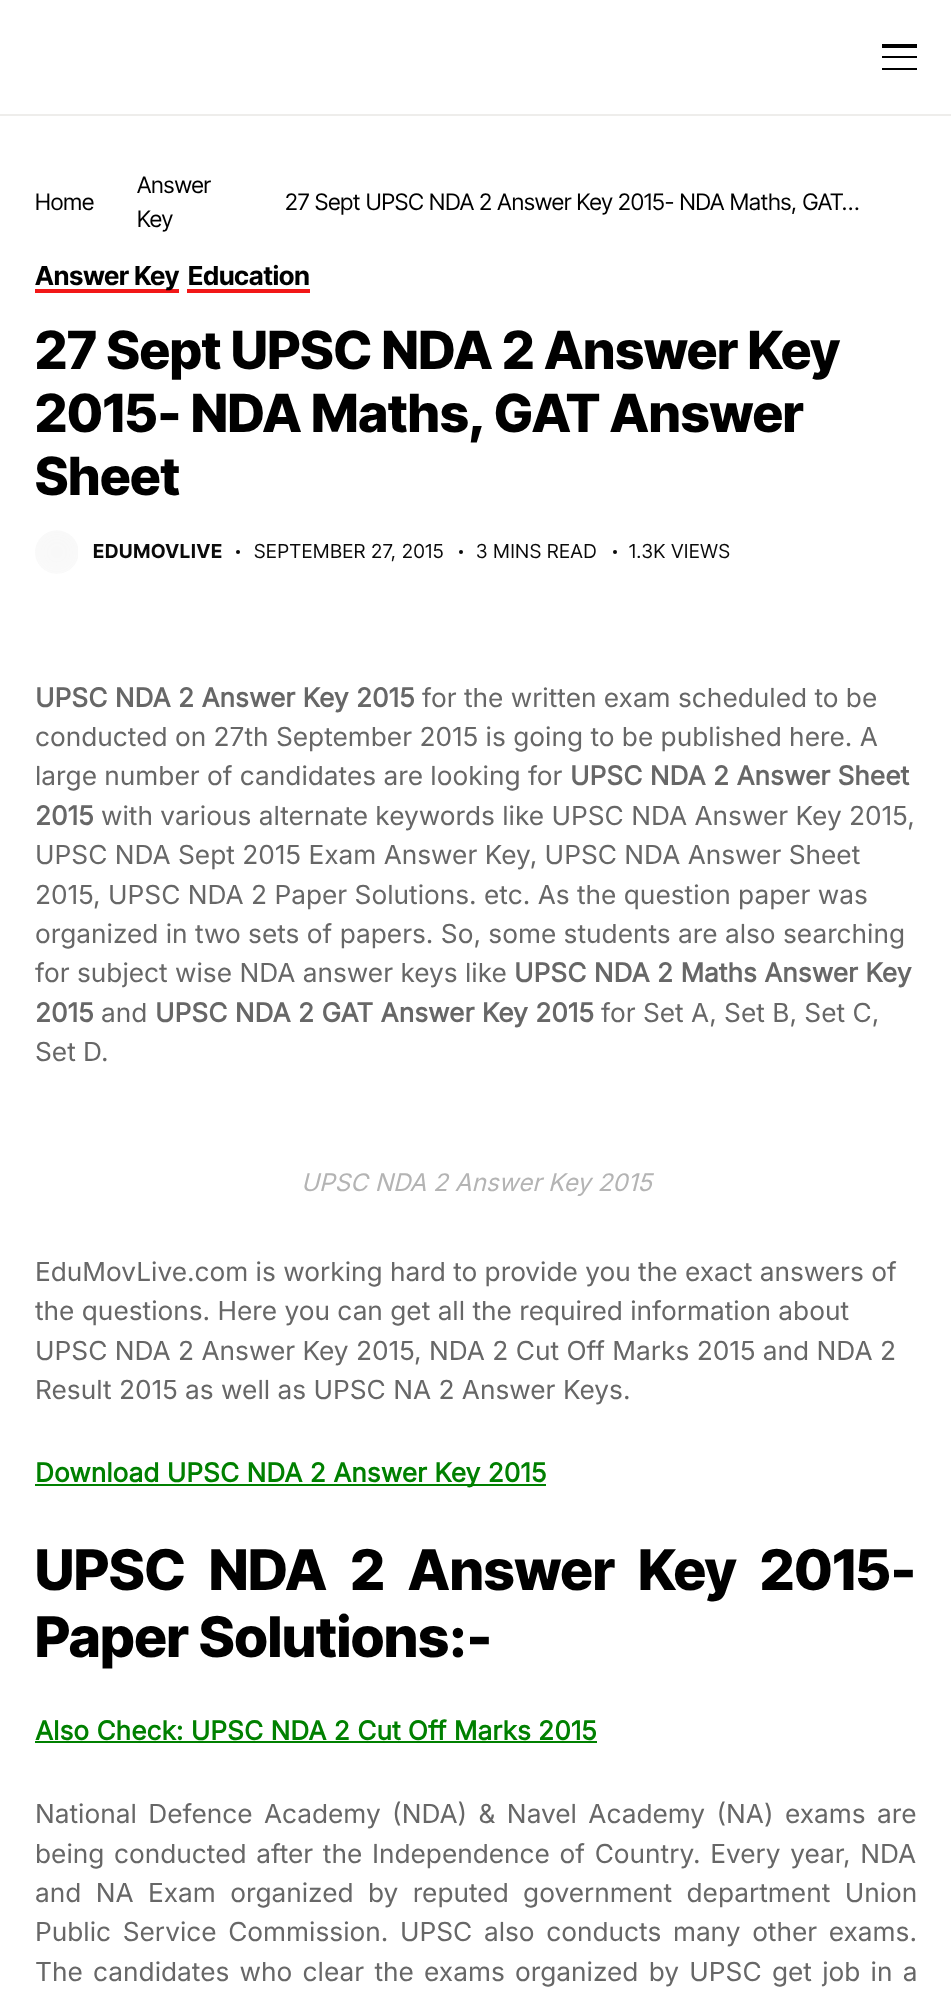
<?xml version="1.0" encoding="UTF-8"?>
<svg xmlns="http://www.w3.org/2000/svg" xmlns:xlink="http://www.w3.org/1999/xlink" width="951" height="2007">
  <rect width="100%" height="100%" fill="#ffffff" />
  <rect y="114" width="951" height="2" fill="#eeedeb" />
  <rect x="882" y="44" width="35" height="4" fill="#000000" />
  <rect x="882" y="56" width="35" height="2" fill="#000000" />
  <rect x="882" y="68" width="35" height="2" fill="#000000" />
  <rect x="35" y="289" width="144" height="4" fill="#f21717" />
  <rect x="187" y="289" width="123" height="4" fill="#f21717" />
  <image x="35" y="530" width="43" height="44" xlink:href="image1.png" />
  <circle cx="238" cy="552" r="2" fill="#0a0a0a" />
  <circle cx="461" cy="552" r="2" fill="#0a0a0a" />
  <circle cx="615" cy="552" r="2" fill="#0a0a0a" />
  <rect x="35" y="1484" width="511" height="2" fill="#008000" />
  <rect x="35" y="1741" width="562" height="2" fill="#008000" />
  <text x="35" y="210" style="font-family: Inter Tight; font-size: 22.75px; fill: #000000">Home</text>
  <text x="137" y="193" style="font-family: Inter Tight; font-size: 22.75px; fill: #000000">Answer</text>
  <text x="137" y="227" style="font-family: Inter Tight; font-size: 22.75px; fill: #000000">Key</text>
  <text x="285" y="210" style="font-family: Inter Tight; font-size: 22.75px; fill: #000000">27 Sept UPSC NDA 2 Answer Key 2015- NDA Maths, GAT…</text>
  <text x="35" y="285" style="font-family: Inter Tight; font-size: 26.25px; font-weight: bold; fill: #000000">Answer Key</text>
  <text x="188" y="285" style="font-family: Inter Tight; font-size: 26.25px; font-weight: bold; fill: #000000">Education</text>
  <text x="35" y="369" style="font-family: Inter Tight; font-size: 52.5px; font-weight: 800; fill: #000000">27 Sept UPSC NDA 2 Answer Key</text>
  <text x="35" y="432" style="font-family: Inter Tight; font-size: 52.5px; font-weight: 800; fill: #000000">2015- NDA Maths, GAT Answer</text>
  <text x="35" y="495" style="font-family: Inter Tight; font-size: 52.5px; font-weight: 800; fill: #000000">Sheet</text>
  <text x="93" y="558" style="font-family: Inter Tight; font-size: 19.25px; font-weight: bold; letter-spacing: 0.75px; fill: #0a0a0a">EDUMOVLIVE</text>
  <text x="254" y="558" style="font-family: Inter Tight; font-size: 19.25px; letter-spacing: 0.75px; fill: #0a0a0a">SEPTEMBER 27, 2015</text>
  <text x="476" y="558" style="font-family: Inter Tight; font-size: 19.25px; letter-spacing: 0.75px; fill: #0a0a0a">3 MINS READ</text>
  <text x="629" y="558" style="font-family: Inter Tight; font-size: 19.25px; letter-spacing: 0.75px; fill: #0a0a0a">1.3K VIEWS</text>
  <text x="35" y="707" style="font-family: Inter; font-size: 26.25px; font-weight: bold; fill: #676767">UPSC NDA 2 Answer Key 2015</text>
  <text x="422" y="707" style="font-family: Inter; font-size: 26.25px; fill: #676767">for the written exam scheduled to be</text>
  <text x="35" y="746" style="font-family: Inter; font-size: 26.25px; fill: #676767">conducted on 27th September 2015 is going to be published here. A</text>
  <text x="35" y="785" style="font-family: Inter; font-size: 26.25px; fill: #676767">large number of candidates are looking for</text>
  <text x="570" y="785" style="font-family: Inter; font-size: 26.25px; font-weight: bold; fill: #676767">UPSC NDA 2 Answer Sheet</text>
  <text x="35" y="825" style="font-family: Inter; font-size: 26.25px; font-weight: bold; fill: #676767">2015</text>
  <text x="101" y="825" style="font-family: Inter; font-size: 26.25px; fill: #676767">with various alternate keywords like UPSC NDA Answer Key 2015,</text>
  <text x="35" y="864" style="font-family: Inter; font-size: 26.25px; fill: #676767">UPSC NDA Sept 2015 Exam Answer Key, UPSC NDA Answer Sheet</text>
  <text x="35" y="904" style="font-family: Inter; font-size: 26.25px; fill: #676767">2015, UPSC NDA 2 Paper Solutions. etc. As the question paper was</text>
  <text x="35" y="943" style="font-family: Inter; font-size: 26.25px; fill: #676767">organized in two sets of papers. So, some students are also searching</text>
  <text x="35" y="982" style="font-family: Inter; font-size: 26.25px; fill: #676767">for subject wise NDA answer keys like</text>
  <text x="514" y="982" style="font-family: Inter; font-size: 26.25px; font-weight: bold; fill: #676767">UPSC NDA 2 Maths Answer Key</text>
  <text x="35" y="1022" style="font-family: Inter; font-size: 26.25px; font-weight: bold; fill: #676767">2015</text>
  <text x="101" y="1022" style="font-family: Inter; font-size: 26.25px; fill: #676767">and</text>
  <text x="155" y="1022" style="font-family: Inter; font-size: 26.25px; font-weight: bold; fill: #676767">UPSC NDA 2 GAT Answer Key 2015</text>
  <text x="601" y="1022" style="font-family: Inter; font-size: 26.25px; fill: #676767">for Set A, Set B, Set C,</text>
  <text x="35" y="1061" style="font-family: Inter; font-size: 26.25px; fill: #676767">Set D.</text>
  <text x="301" y="1191" style="font-family: Inter; font-size: 24.25px; font-style: italic; fill: #b4b4b4">UPSC NDA 2 Answer Key 2015</text>
  <text x="35" y="1281" style="font-family: Inter; font-size: 26.25px; fill: #676767">EduMovLive.com is working hard to provide you the exact answers of</text>
  <text x="35" y="1320" style="font-family: Inter; font-size: 26.25px; fill: #676767">the questions. Here you can get all the required information about</text>
  <text x="35" y="1360" style="font-family: Inter; font-size: 26.25px; fill: #676767">UPSC NDA 2 Answer Key 2015, NDA 2 Cut Off Marks 2015 and NDA 2</text>
  <text x="35" y="1399" style="font-family: Inter; font-size: 26.25px; fill: #676767">Result 2015 as well as UPSC NA 2 Answer Keys.</text>
  <text x="35" y="1482" style="font-family: Inter; font-size: 26.25px; font-weight: bold; fill: #008000">Download UPSC NDA 2 Answer Key 2015</text>
  <text x="35" y="1590" word-spacing="13" style="font-family: Inter Tight; font-size: 56px; font-weight: 800; fill: #000000">UPSC NDA 2 Answer Key 2015-</text>
  <text x="35" y="1657" style="font-family: Inter Tight; font-size: 56px; font-weight: 800; fill: #000000">Paper Solutions:-</text>
  <text x="35" y="1740" style="font-family: Inter; font-size: 26.25px; font-weight: bold; fill: #008000">Also Check: UPSC NDA 2 Cut Off Marks 2015</text>
  <text x="35" y="1823" word-spacing="4" style="font-family: Inter; font-size: 26.25px; fill: #676767">National Defence Academy (NDA) &amp; Navel Academy (NA) exams are</text>
  <text x="35" y="1863" word-spacing="2.25" style="font-family: Inter; font-size: 26.25px; fill: #676767">being conducted after the Independence of Country. Every year, NDA</text>
  <text x="35" y="1902" word-spacing="7" style="font-family: Inter; font-size: 26.25px; fill: #676767">and NA Exam organized by reputed government department Union</text>
  <text x="35" y="1941" word-spacing="4.25" style="font-family: Inter; font-size: 26.25px; fill: #676767">Public Service Commission. UPSC also conducts many other exams.</text>
  <text x="35" y="1981" word-spacing="2.9" style="font-family: Inter; font-size: 26.25px; fill: #676767">The candidates who clear the exams organized by UPSC get job in a</text>
</svg>
